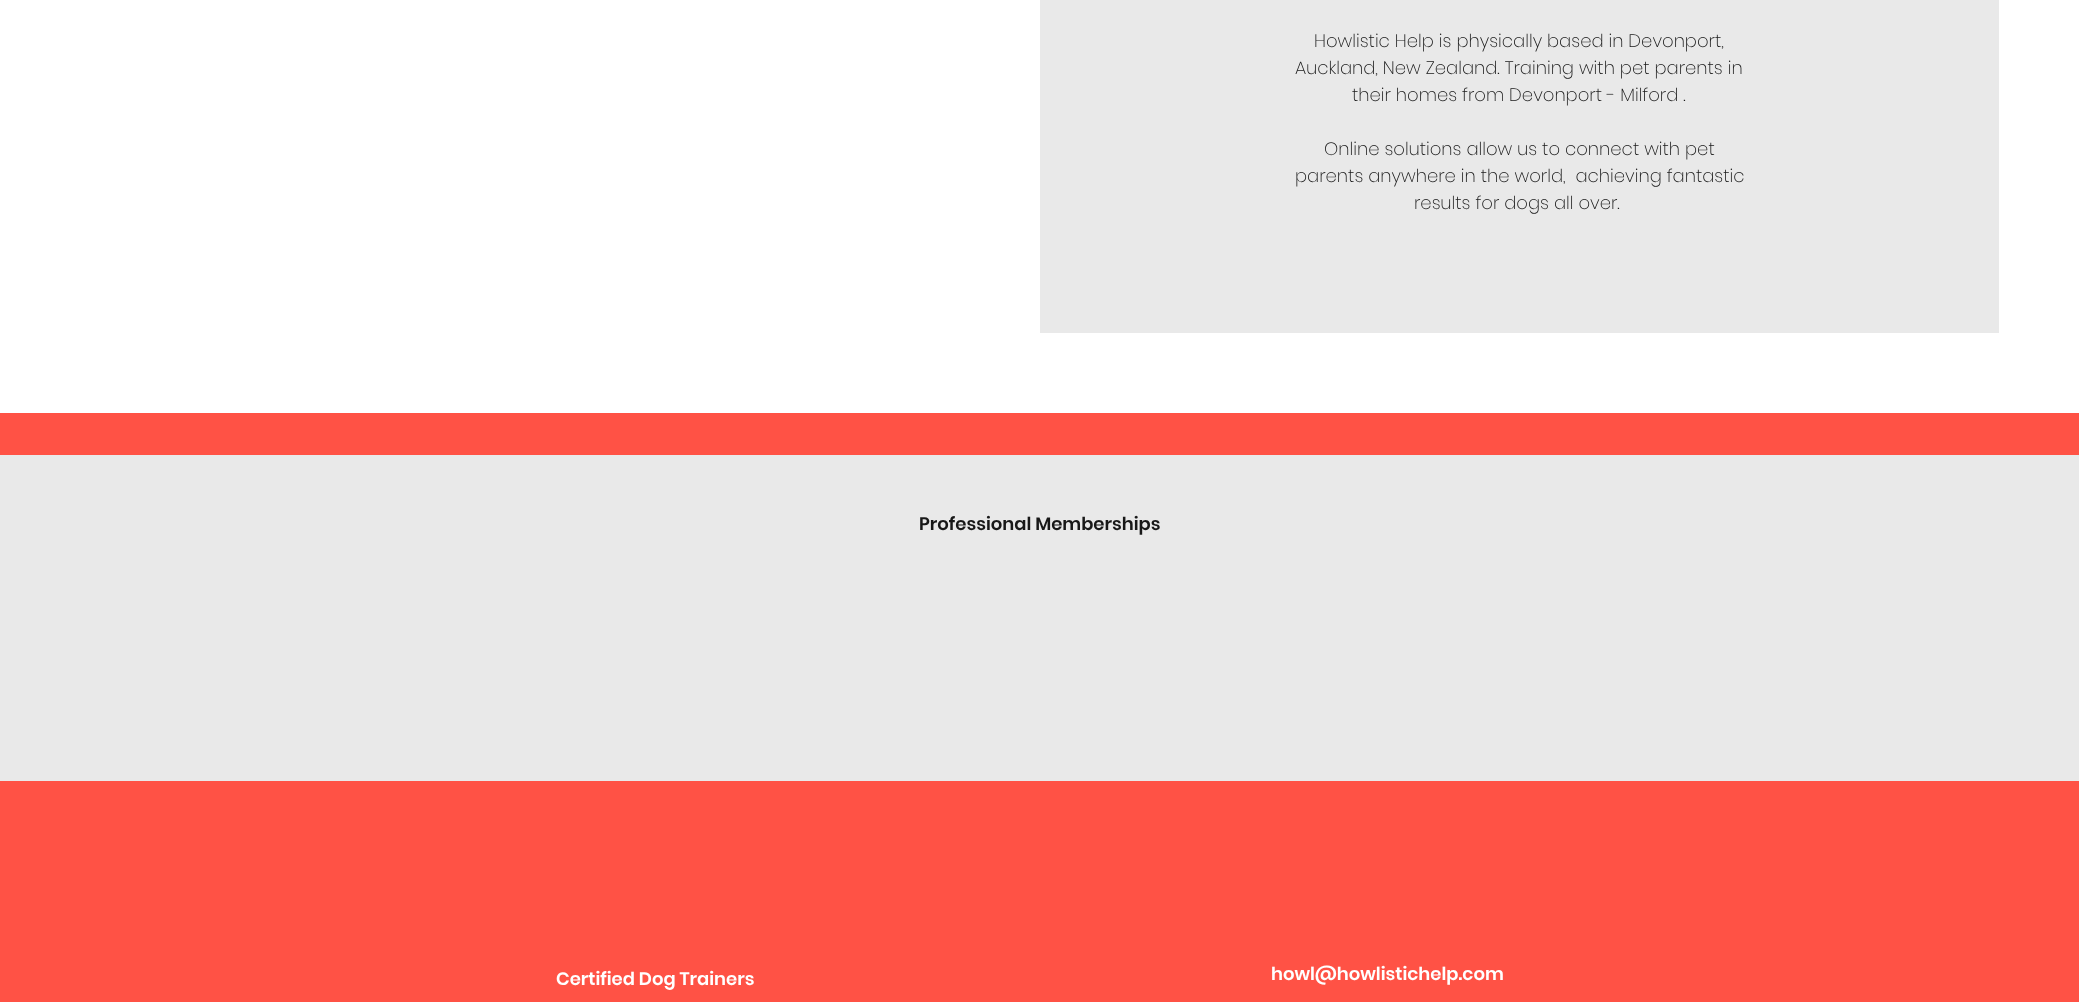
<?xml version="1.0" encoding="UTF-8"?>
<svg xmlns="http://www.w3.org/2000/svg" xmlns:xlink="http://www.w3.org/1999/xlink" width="2079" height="1002">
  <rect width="100%" height="100%" fill="#ff5245" />
  <rect width="2079" height="413" fill="#ffffff" />
  <rect x="1040" width="959" height="333" fill="#e9e9e9" />
  <rect y="455" width="2079" height="326" fill="#e9e9e9" />
  <text x="1314" y="47" style="font-family: Poppins; font-size: 18px; font-weight: 200; fill: #181818">Howlistic Help is physically based in Devonport,</text>
  <text x="1295" y="74" style="font-family: Poppins; font-size: 18px; font-weight: 200; fill: #181818">Auckland, New Zealand. Training with pet parents in</text>
  <text x="1352" y="101" style="font-family: Poppins; font-size: 18px; font-weight: 200; fill: #181818">their homes from Devonport - Milford .</text>
  <text x="1324" y="155" style="font-family: Poppins; font-size: 18px; font-weight: 200; fill: #181818">Online solutions allow us to connect with pet</text>
  <text x="1295" y="182" style="font-family: Poppins; font-size: 18px; font-weight: 200; fill: #181818" xml:space="preserve">parents anywhere in the world,  achieving fantastic</text>
  <text x="1414" y="209" style="font-family: Poppins; font-size: 18px; font-weight: 200; fill: #181818">results for dogs all over.</text>
  <text x="919" y="530" style="font-family: Poppins; font-size: 18px; font-weight: 600; fill: #181818">Professional Memberships</text>
  <text x="556" y="985" style="font-family: Poppins; font-size: 18px; font-weight: 600; fill: #ffffff">Certified Dog Trainers</text>
  <text x="1271" y="980" style="font-family: Poppins; font-size: 18px; font-weight: 600; fill: #ffffff">howl@howlistichelp.com</text>
</svg>
